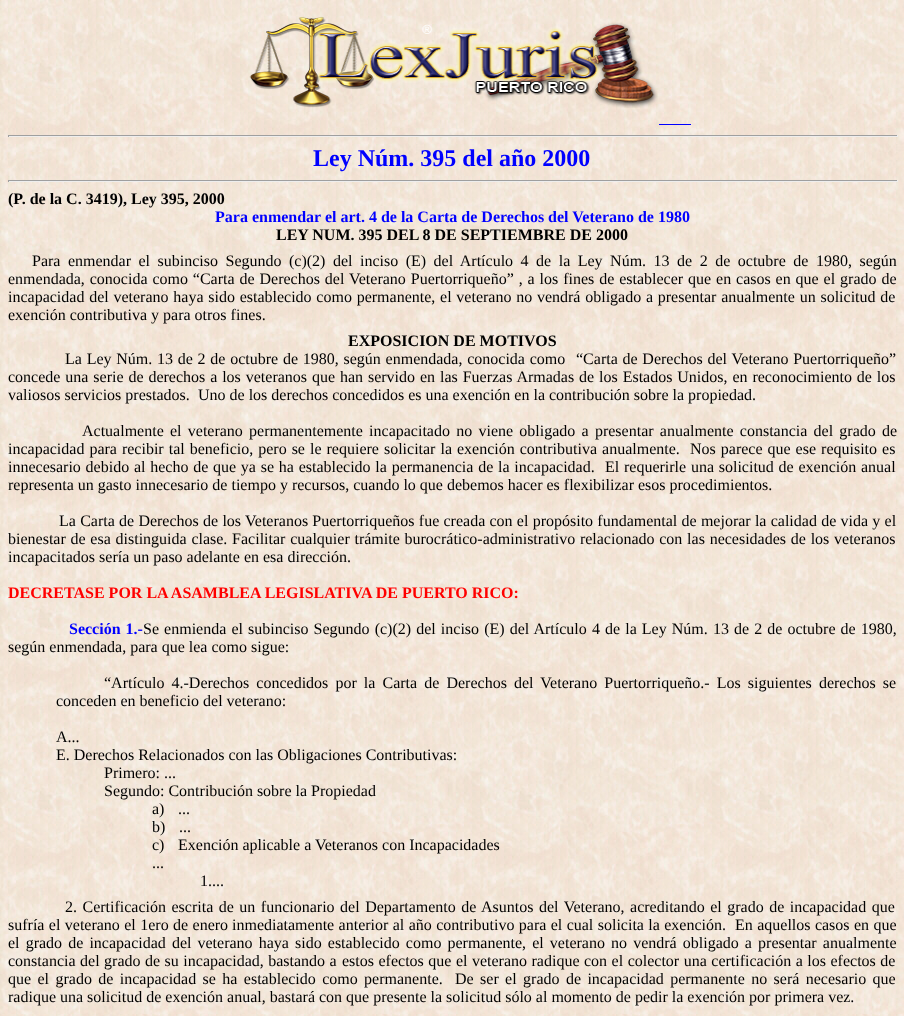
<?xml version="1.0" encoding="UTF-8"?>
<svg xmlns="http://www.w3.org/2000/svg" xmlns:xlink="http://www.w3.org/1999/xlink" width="904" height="1016">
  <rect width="100%" height="100%" fill="#ffffff" />
  <image x="0" y="0" width="904" height="1016" xlink:href="image1.png" />
  <image x="249" y="17" width="409" height="91" xlink:href="image2.png" />
  <rect x="659" y="124" width="32" height="1" fill="#0000ff" />
  <rect x="8" y="135" width="890" height="1" fill="#9f9f9f" />
  <rect x="897" y="135" width="1" height="2" fill="#eeeeee" />
  <rect x="8" y="136" width="890" height="1" fill="#eeeeee" />
  <rect x="8" y="135" width="1" height="2" fill="#9f9f9f" />
  <rect x="8" y="180" width="890" height="1" fill="#9f9f9f" />
  <rect x="897" y="180" width="1" height="2" fill="#eeeeee" />
  <rect x="8" y="181" width="890" height="1" fill="#eeeeee" />
  <rect x="8" y="180" width="1" height="2" fill="#9f9f9f" />
  <text x="313" y="166" style="font-family: Liberation Serif; font-size: 24px; font-weight: bold; fill: #0000ff">Ley Núm. 395 del año 2000</text>
  <text x="8" y="204" style="font-family: Liberation Serif; font-size: 16px; font-weight: bold; fill: #000000">(P. de la C. 3419), Ley 395, 2000</text>
  <text x="215" y="222" style="font-family: Liberation Serif; font-size: 16px; font-weight: bold; fill: #0000ff">Para enmendar el art. 4 de la Carta de Derechos del Veterano de 1980</text>
  <text x="276" y="240" style="font-family: Liberation Serif; font-size: 16px; font-weight: bold; fill: #000000">LEY NUM. 395 DEL 8 DE SEPTIEMBRE DE 2000</text>
  <text x="32" y="266" word-spacing="3.5" style="font-family: Liberation Serif; font-size: 16px; fill: #000000">Para enmendar el subinciso Segundo (c)(2) del inciso (E) del Artículo 4 de la Ley Núm. 13 de 2 de octubre de 1980, según</text>
  <text x="8" y="284" word-spacing="0.9" style="font-family: Liberation Serif; font-size: 16px; fill: #000000">enmendada, conocida como “Carta de Derechos del Veterano Puertorriqueño” , a los fines de establecer que en casos en que el grado de</text>
  <text x="8" y="302" word-spacing="0.75" style="font-family: Liberation Serif; font-size: 16px; fill: #000000">incapacidad del veterano haya sido establecido como permanente, el veterano no vendrá obligado a presentar anualmente un solicitud de</text>
  <text x="8" y="320" style="font-family: Liberation Serif; font-size: 16px; fill: #000000">exención contributiva y para otros fines.</text>
  <text x="348" y="346" style="font-family: Liberation Serif; font-size: 16px; font-weight: bold; fill: #000000">EXPOSICION DE MOTIVOS</text>
  <text x="65" y="364" word-spacing="0.75" style="font-family: Liberation Serif; font-size: 16px; fill: #000000">La Ley Núm. 13 de 2 de octubre de 1980, según enmendada, conocida como</text>
  <text x="576" y="364" word-spacing="0.75" style="font-family: Liberation Serif; font-size: 16px; fill: #000000">“Carta de Derechos del Veterano Puertorriqueño”</text>
  <text x="8" y="382" word-spacing="0.9" style="font-family: Liberation Serif; font-size: 16px; fill: #000000">concede una serie de derechos a los veteranos que han servido en las Fuerzas Armadas de los Estados Unidos, en reconocimiento de los</text>
  <text x="8" y="400" style="font-family: Liberation Serif; font-size: 16px; fill: #000000">valiosos servicios prestados.</text>
  <text x="198" y="400" style="font-family: Liberation Serif; font-size: 16px; fill: #000000">Uno de los derechos concedidos es una exención en la contribución sobre la propiedad.</text>
  <text x="82" y="436" word-spacing="2.25" style="font-family: Liberation Serif; font-size: 16px; fill: #000000">Actualmente el veterano permanentemente incapacitado no viene obligado a presentar anualmente constancia del grado de</text>
  <text x="8" y="454" word-spacing="1" style="font-family: Liberation Serif; font-size: 16px; fill: #000000">incapacidad para recibir tal beneficio, pero se le requiere solicitar la exención contributiva anualmente.</text>
  <text x="690" y="454" word-spacing="1" style="font-family: Liberation Serif; font-size: 16px; fill: #000000">Nos parece que ese requisito es</text>
  <text x="8" y="472" word-spacing="0.75" style="font-family: Liberation Serif; font-size: 16px; fill: #000000">innecesario debido al hecho de que ya se ha establecido la permanencia de la incapacidad.</text>
  <text x="605" y="472" word-spacing="0.75" style="font-family: Liberation Serif; font-size: 16px; fill: #000000">El requerirle una solicitud de exención anual</text>
  <text x="8" y="490" style="font-family: Liberation Serif; font-size: 16px; fill: #000000">representa un gasto innecesario de tiempo y recursos, cuando lo que debemos hacer es flexibilizar esos procedimientos.</text>
  <text x="59" y="526" word-spacing="0.25" style="font-family: Liberation Serif; font-size: 16px; fill: #000000">La Carta de Derechos de los Veteranos Puertorriqueños fue creada con el propósito fundamental de mejorar la calidad de vida y el</text>
  <text x="8" y="544" word-spacing="0.75" style="font-family: Liberation Serif; font-size: 16px; fill: #000000">bienestar de esa distinguida clase. Facilitar cualquier trámite burocrático-administrativo relacionado con las necesidades de los veteranos</text>
  <text x="8" y="562" style="font-family: Liberation Serif; font-size: 16px; fill: #000000">incapacitados sería un paso adelante en esa dirección.</text>
  <text x="8" y="598" style="font-family: Liberation Serif; font-size: 16px; font-weight: bold; fill: #ff0000">DECRETASE POR LA ASAMBLEA LEGISLATIVA DE PUERTO RICO:</text>
  <text x="69" y="634" word-spacing="1" style="font-family: Liberation Serif; font-size: 16px; font-weight: bold; fill: #0000ff">Sección 1.-</text>
  <text x="143" y="634" word-spacing="1.1" style="font-family: Liberation Serif; font-size: 16px; fill: #000000">Se enmienda el subinciso Segundo (c)(2) del inciso (E) del Artículo 4 de la Ley Núm. 13 de 2 de octubre de 1980,</text>
  <text x="8" y="652" style="font-family: Liberation Serif; font-size: 16px; fill: #000000">según enmendada, para que lea como sigue:</text>
  <text x="104" y="688" word-spacing="3.1" style="font-family: Liberation Serif; font-size: 16px; fill: #000000">“Artículo 4.-Derechos concedidos por la Carta de Derechos del Veterano Puertorriqueño.- Los siguientes derechos se</text>
  <text x="56" y="706" style="font-family: Liberation Serif; font-size: 16px; fill: #000000">conceden en beneficio del veterano:</text>
  <text x="56" y="742" style="font-family: Liberation Serif; font-size: 16px; fill: #000000">A...</text>
  <text x="56" y="760" style="font-family: Liberation Serif; font-size: 16px; fill: #000000">E. Derechos Relacionados con las Obligaciones Contributivas:</text>
  <text x="104" y="778" style="font-family: Liberation Serif; font-size: 16px; fill: #000000">Primero: ...</text>
  <text x="104" y="796" style="font-family: Liberation Serif; font-size: 16px; fill: #000000">Segundo: Contribución sobre la Propiedad</text>
  <text x="152" y="814" style="font-family: Liberation Serif; font-size: 16px; fill: #000000">a)</text>
  <text x="178" y="814" style="font-family: Liberation Serif; font-size: 16px; fill: #000000">...</text>
  <text x="152" y="832" style="font-family: Liberation Serif; font-size: 16px; fill: #000000">b)</text>
  <text x="179" y="832" style="font-family: Liberation Serif; font-size: 16px; fill: #000000">...</text>
  <text x="152" y="850" style="font-family: Liberation Serif; font-size: 16px; fill: #000000">c)</text>
  <text x="178" y="850" style="font-family: Liberation Serif; font-size: 16px; fill: #000000">Exención aplicable a Veteranos con Incapacidades</text>
  <text x="152" y="868" style="font-family: Liberation Serif; font-size: 16px; fill: #000000">...</text>
  <text x="200" y="886" style="font-family: Liberation Serif; font-size: 16px; fill: #000000">1....</text>
  <text x="65" y="912" word-spacing="1.5" style="font-family: Liberation Serif; font-size: 16px; fill: #000000">2. Certificación escrita de un funcionario del Departamento de Asuntos del Veterano, acreditando el grado de incapacidad que</text>
  <text x="8" y="930" word-spacing="0.4" style="font-family: Liberation Serif; font-size: 16px; fill: #000000">sufría el veterano el 1ero de enero</text>
  <text x="232" y="930" word-spacing="0.4" style="font-family: Liberation Serif; font-size: 16px; fill: #000000">inmediatamente anterior al año contributivo para el cual solicita la exención.</text>
  <text x="735" y="930" word-spacing="0.4" style="font-family: Liberation Serif; font-size: 16px; fill: #000000">En aquellos casos en que</text>
  <text x="8" y="948" word-spacing="2.1" style="font-family: Liberation Serif; font-size: 16px; fill: #000000">el grado de incapacidad del veterano haya sido establecido como permanente, el veterano no vendrá obligado a presentar anualmente</text>
  <text x="8" y="966" word-spacing="0.5" style="font-family: Liberation Serif; font-size: 16px; fill: #000000">constancia del grado de su incapacidad, bastando a</text>
  <text x="342" y="966" word-spacing="0.5" style="font-family: Liberation Serif; font-size: 16px; fill: #000000">estos efectos que el veterano radique con el colector una certificación a los efectos de</text>
  <text x="8" y="984" word-spacing="2.4" style="font-family: Liberation Serif; font-size: 16px; fill: #000000">que el grado de incapacidad se ha establecido como permanente.</text>
  <text x="455" y="984" word-spacing="2.4" style="font-family: Liberation Serif; font-size: 16px; fill: #000000">De ser el grado de incapacidad permanente no será necesario que</text>
  <text x="8" y="1002" style="font-family: Liberation Serif; font-size: 16px; fill: #000000">radique una solicitud de exención anual, bastará con que presente la solicitud sólo al momento de pedir la exención por primera vez.</text>
</svg>
